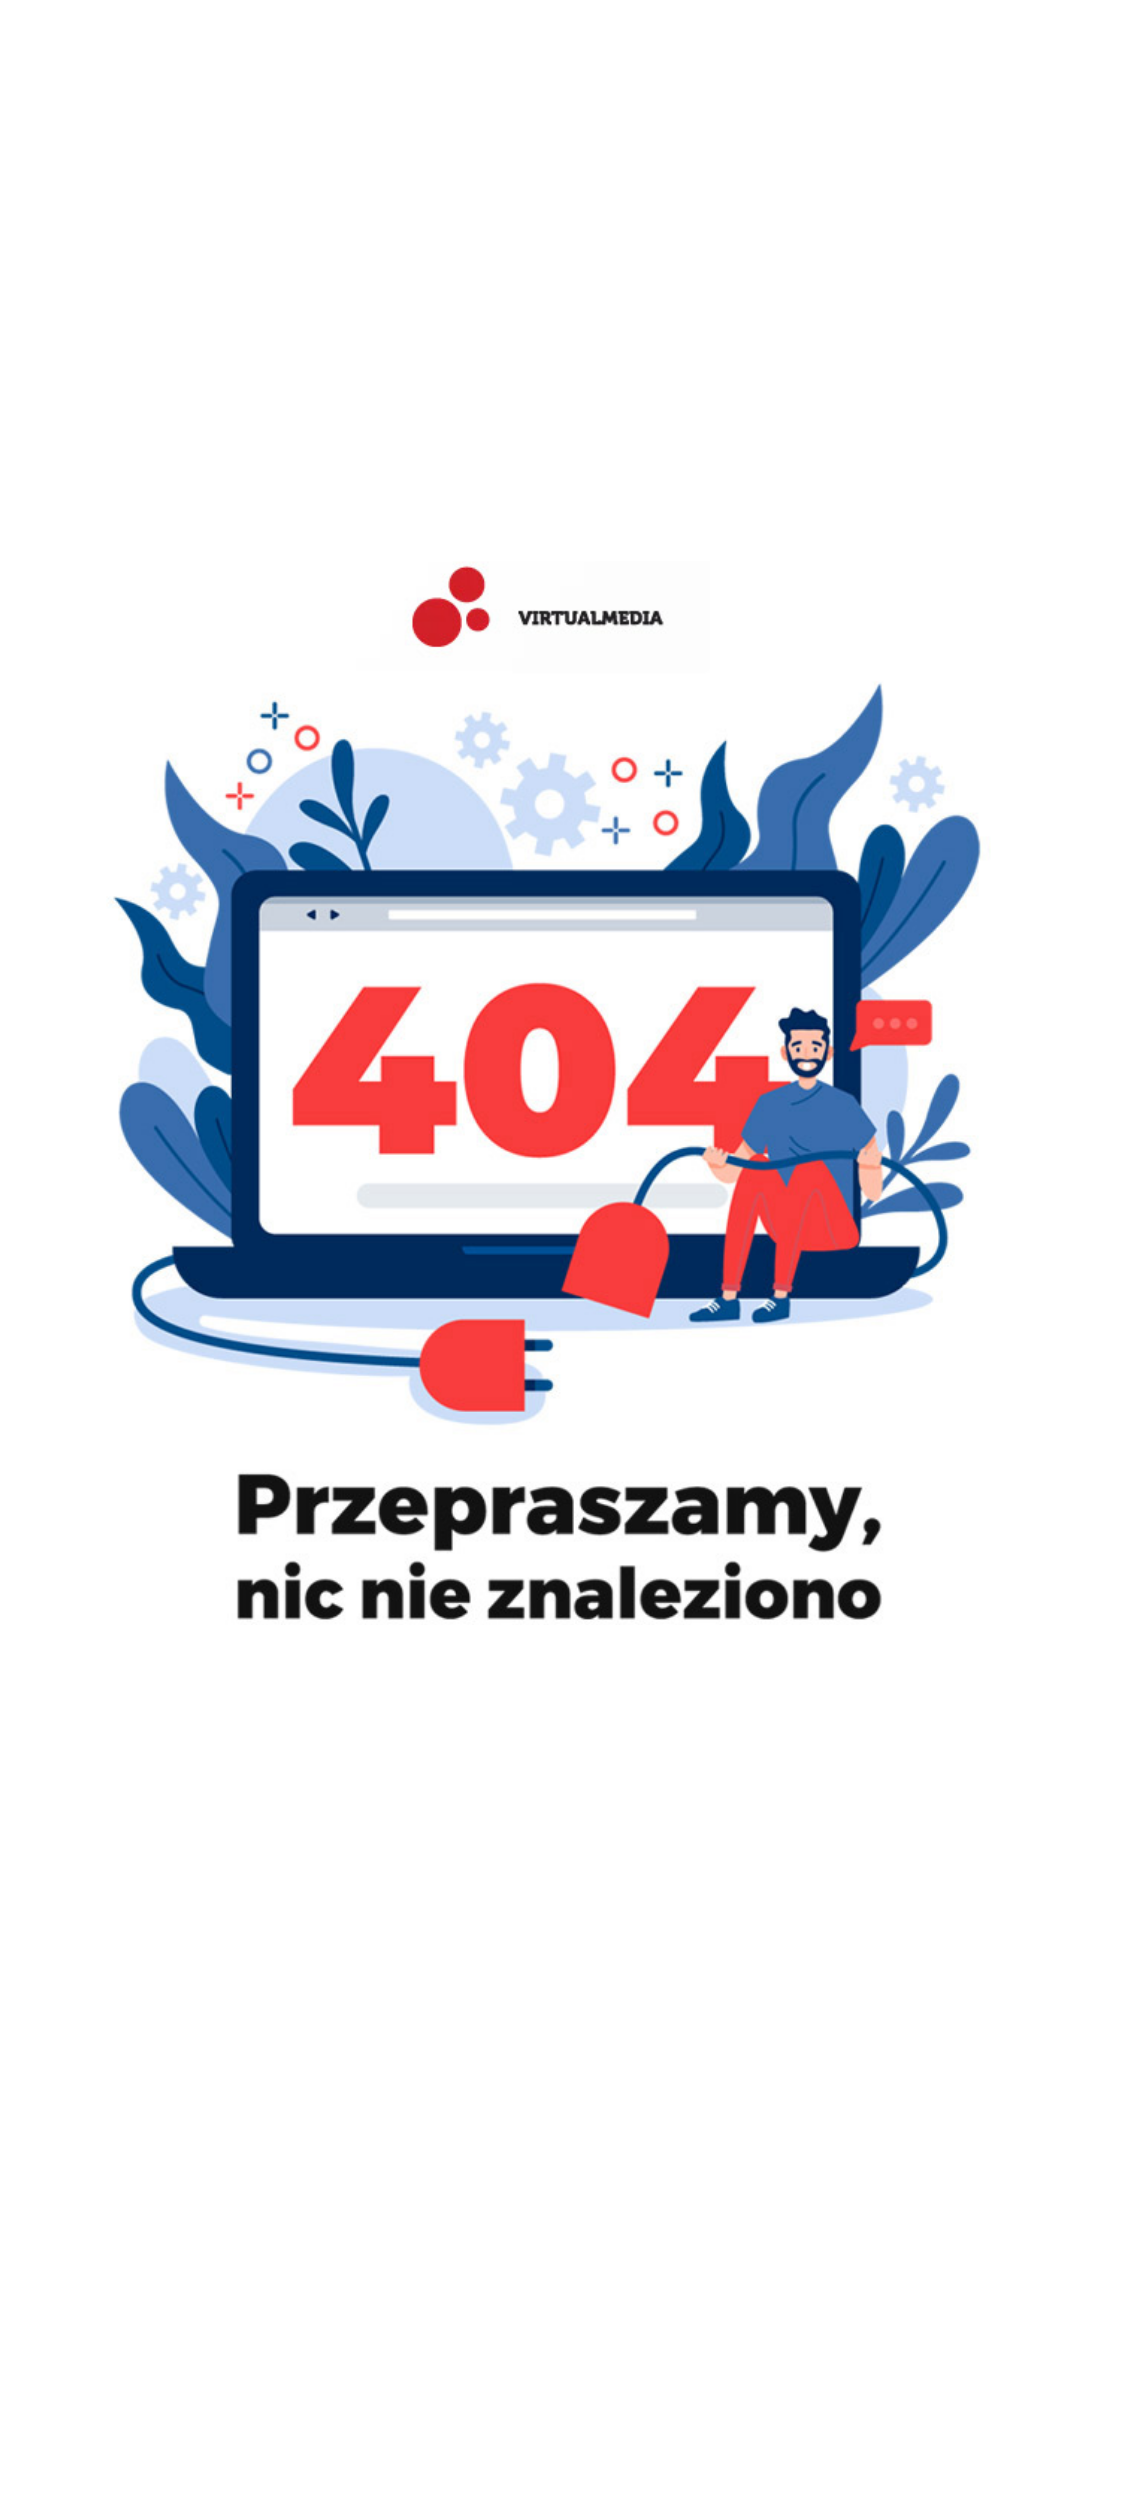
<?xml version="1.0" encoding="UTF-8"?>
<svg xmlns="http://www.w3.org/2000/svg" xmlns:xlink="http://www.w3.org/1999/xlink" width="1143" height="2508">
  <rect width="100%" height="100%" fill="#ffffff" />
  <image x="106" y="561" width="885" height="1064" xlink:href="image1.png" />
</svg>
